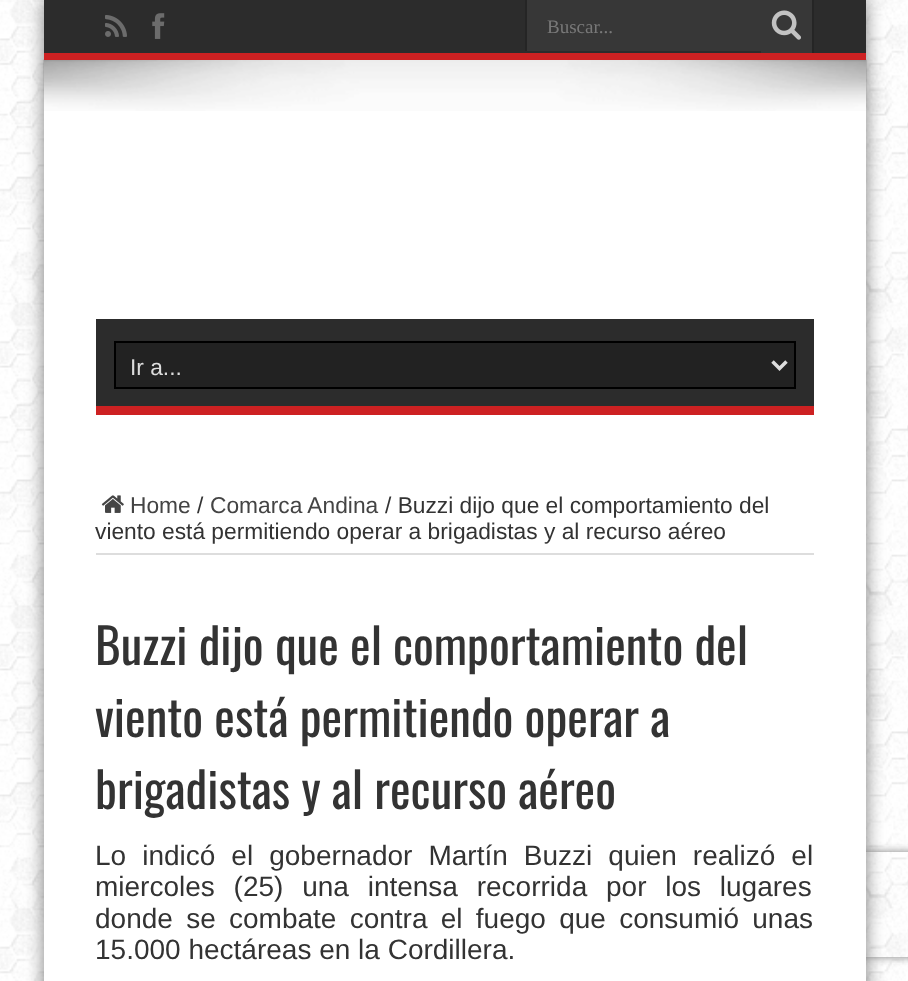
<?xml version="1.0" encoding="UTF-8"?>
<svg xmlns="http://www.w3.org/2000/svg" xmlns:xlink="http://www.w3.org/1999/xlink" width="908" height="981">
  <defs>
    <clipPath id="clip1"><path d="M 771 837 h 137 v 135 h -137 z m 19 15 h 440 c 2 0 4 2 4 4 v 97 c 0 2 -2 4 -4 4 h -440 c -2 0 -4 -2 -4 -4 v -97 c 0 -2 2 -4 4 -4 z" clip-rule="evenodd" /></clipPath>
  </defs>
  <rect width="100%" height="100%" fill="#ffffff" />
  <image x="0" y="0" width="908" height="981" xlink:href="image1.png" />
  <rect x="44" width="822" height="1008" fill="#000000" fill-opacity="0.5" filter="blur(9px)" />
  <g clip-path="url(#clip1)">
    <rect x="786" y="852" width="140" height="105" rx="4" fill="#808080" filter="blur(4.5px)" />
  </g>
  <rect x="44" y="60" width="822" height="921" fill="#ffffff" />
  <rect x="44" width="822" height="53" fill="#2c2c2c" />
  <image x="43" y="59" width="824" height="52" xlink:href="image5.png" />
  <rect x="44" y="53" width="822" height="7" fill="#cd2122" />
  <image x="105" y="15" width="22" height="22" xlink:href="image2.png" />
  <image x="152" y="13" width="13" height="26" xlink:href="image3.png" />
  <rect x="527" width="234" height="51" fill="#373737" />
  <rect x="525" width="2" height="51" fill="#252525" />
  <rect x="761" width="51" height="53" fill="#373737" />
  <rect x="812" width="2" height="53" fill="#252525" />
  <image x="771" y="10" width="30" height="30" xlink:href="image4.png" />
  <rect x="96" y="319" width="718" height="87" fill="#2c2c2c" />
  <rect x="96" y="406" width="718" height="9" fill="#cd2122" />
  <rect x="115" y="342" width="680" height="46" fill="#222222" stroke="#000000" stroke-width="2" />
  <path d="M 772.5 361.5 l 7 7 l 7 -7" fill="none" stroke="#dddddd" stroke-width="3.5" />
  <rect x="96" y="553" width="718" height="2" fill="#dddddd" />
  <image x="101" y="495" width="23" height="18" xlink:href="image6.png" />
  <text x="547" y="33" style="font-family: Liberation Serif; font-size: 19px; fill: #787878">Buscar...</text>
  <text x="130" y="375" style="font-family: Liberation Sans; font-size: 22.75px; fill: #dddddd">Ir a...</text>
  <text x="130" y="513" style="font-family: Liberation Sans; font-size: 22.75px; fill: #444444">Home</text>
  <text x="197" y="513" style="font-family: Liberation Sans; font-size: 22.75px; fill: #333333">/</text>
  <text x="210" y="513" style="font-family: Liberation Sans; font-size: 22.75px; fill: #444444">Comarca Andina</text>
  <text x="385" y="513" style="font-family: Liberation Sans; font-size: 22.75px; fill: #333333">/ Buzzi dijo que el comportamiento del</text>
  <text x="95" y="539" style="font-family: Liberation Sans; font-size: 22.75px; fill: #333333">viento está permitiendo operar a brigadistas y al recurso aéreo</text>
  <text x="95" y="665" style="font-family: Oswald; font-size: 49px; fill: #333333">Buzzi dijo que el comportamiento del</text>
  <text x="95" y="737" style="font-family: Oswald; font-size: 49px; fill: #333333">viento está permitiendo operar a</text>
  <text x="95" y="809" style="font-family: Oswald; font-size: 49px; fill: #333333">brigadistas y al recurso aéreo</text>
  <text x="95" y="865" word-spacing="8.25" style="font-family: Liberation Sans; font-size: 28px; fill: #333333">Lo indicó el gobernador Martín Buzzi quien realizó el</text>
  <text x="95" y="896" word-spacing="11" style="font-family: Liberation Sans; font-size: 28px; fill: #333333">miercoles (25) una intensa recorrida por los lugares</text>
  <text x="95" y="928" word-spacing="5.5" style="font-family: Liberation Sans; font-size: 28px; fill: #333333">donde se combate contra el fuego que consumió unas</text>
  <text x="95" y="959" style="font-family: Liberation Sans; font-size: 28px; fill: #333333">15.000 hectáreas en la Cordillera.</text>
</svg>
